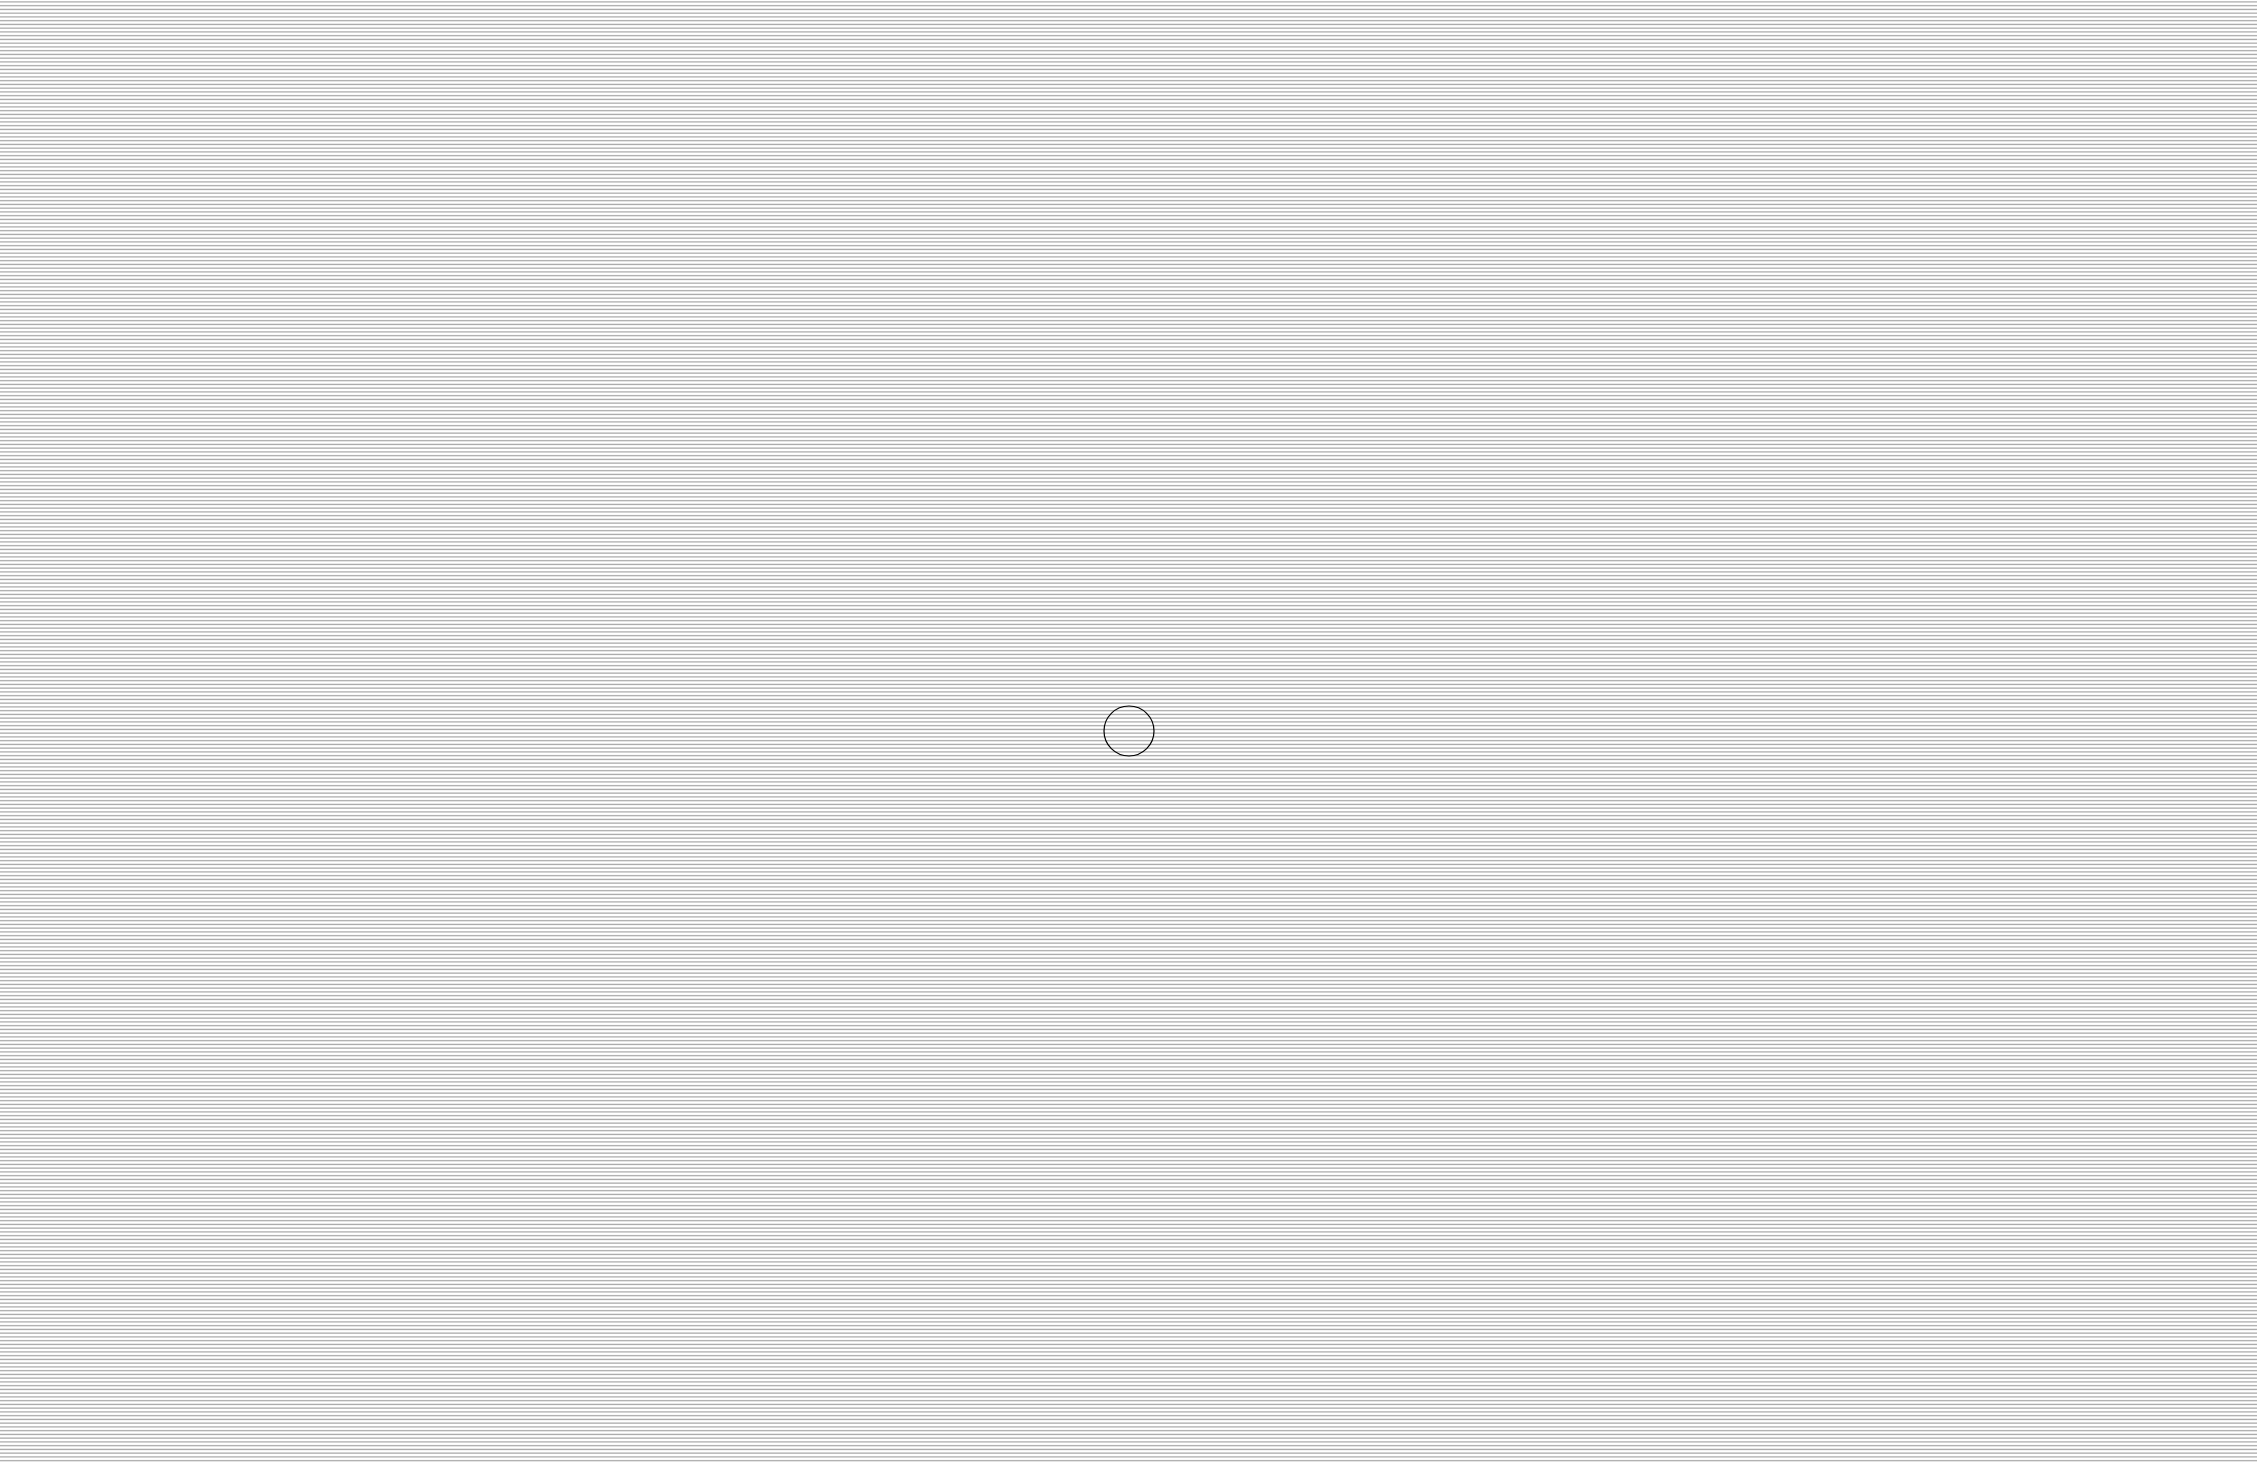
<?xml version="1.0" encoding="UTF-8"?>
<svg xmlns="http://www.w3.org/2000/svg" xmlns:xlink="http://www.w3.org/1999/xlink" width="2257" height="1462">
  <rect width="100%" height="100%" fill="#ffffff" />
  <image x="0" y="1" width="2257" height="1461" xlink:href="image1.png" />
  <circle cx="1129" cy="731" r="25" fill="none" stroke="#000000" stroke-width="1.2" />
</svg>
